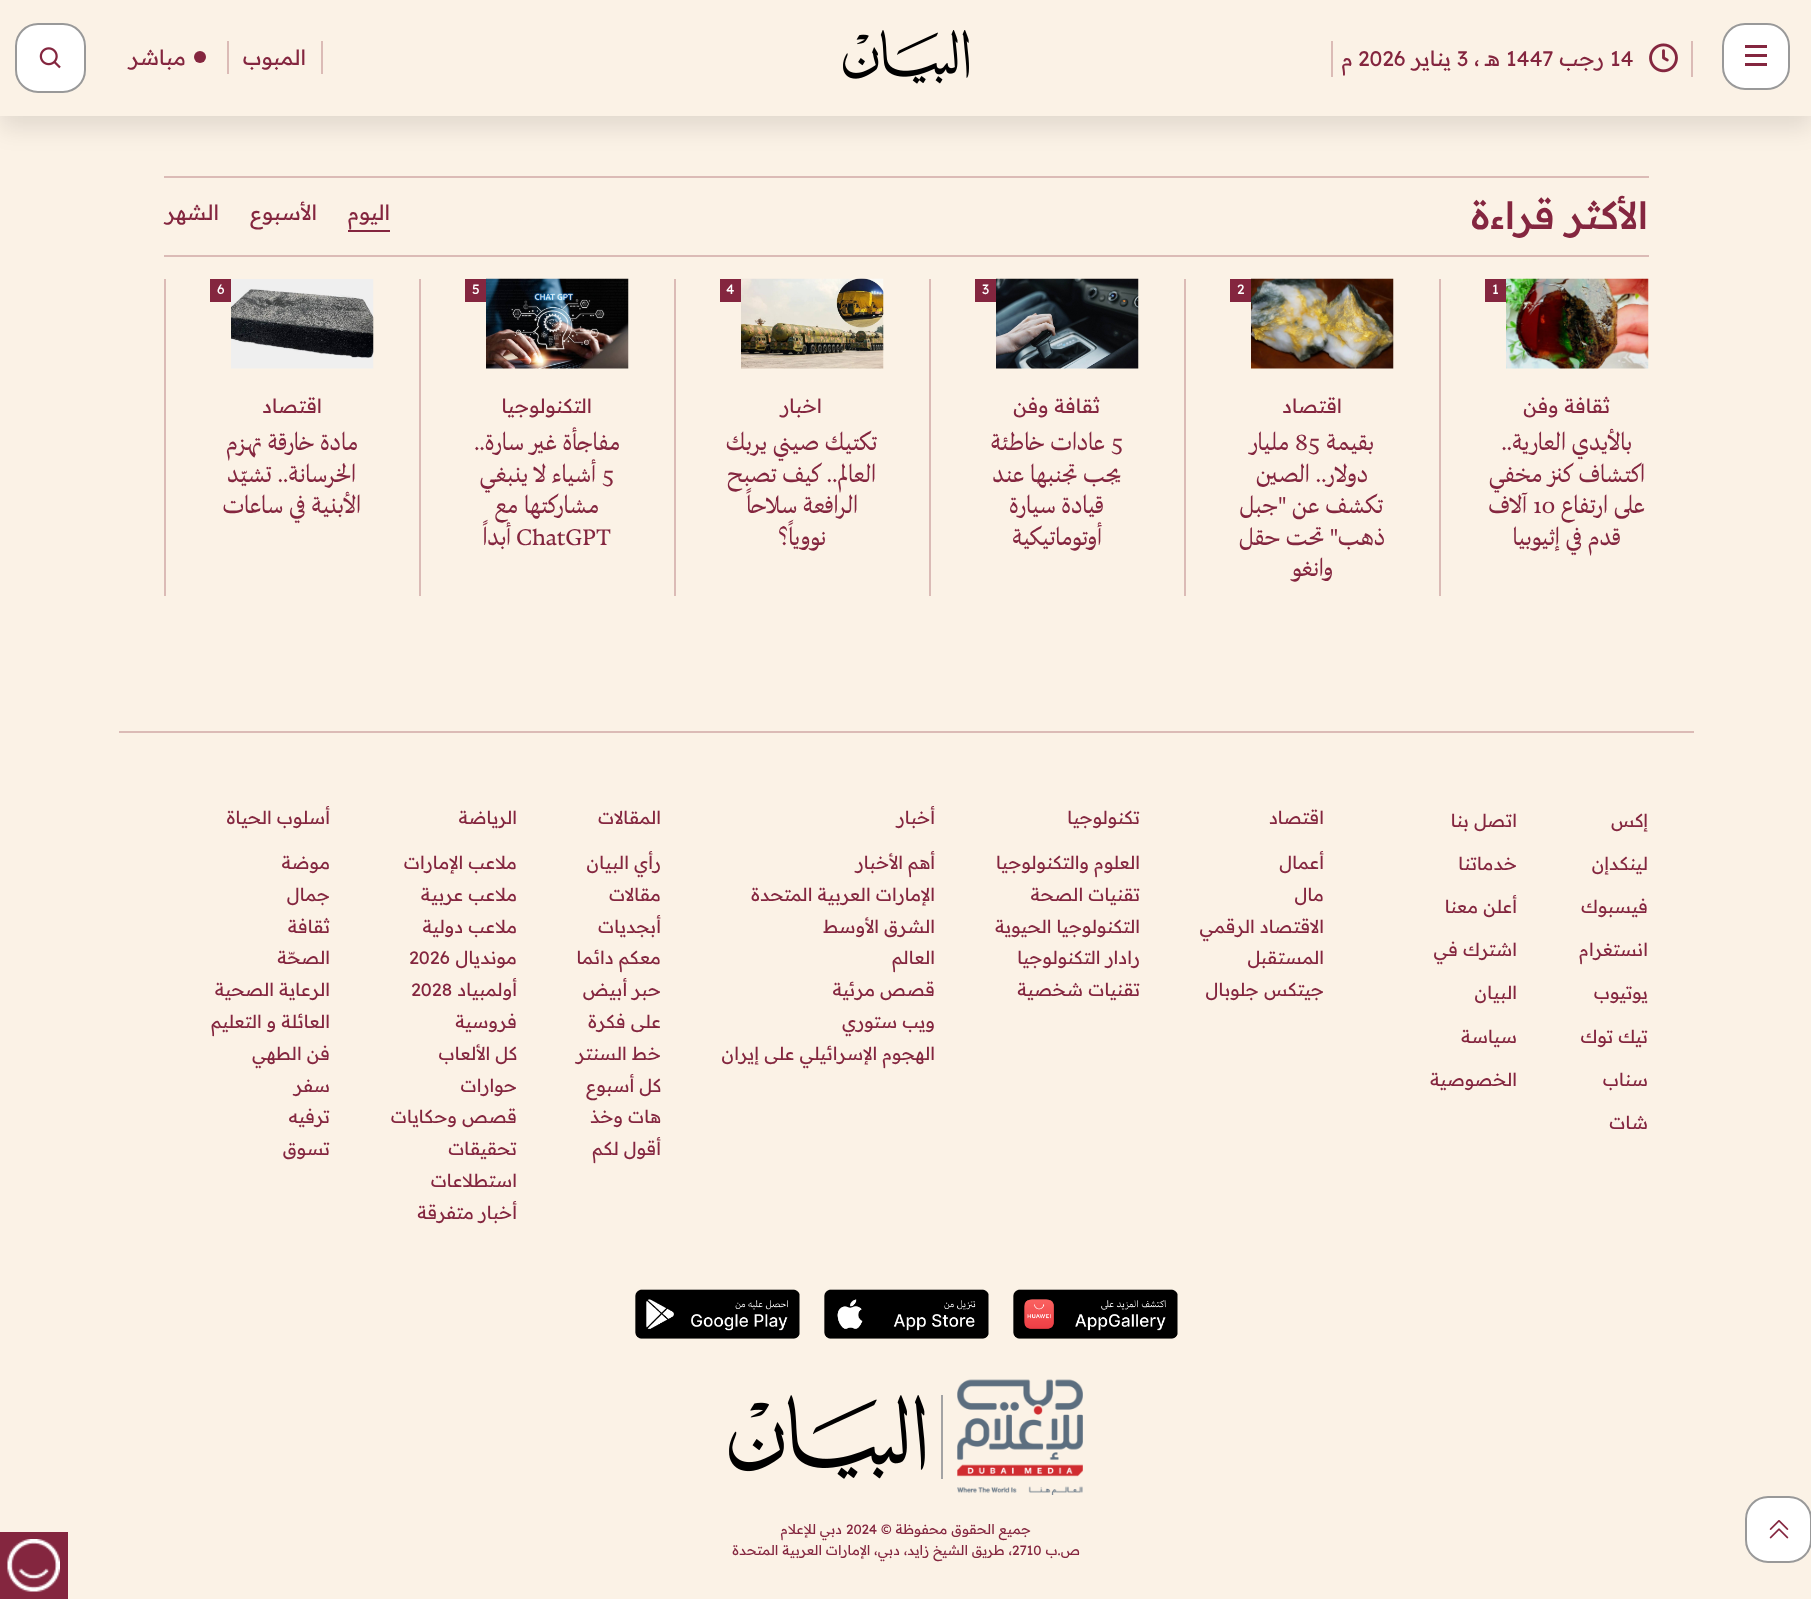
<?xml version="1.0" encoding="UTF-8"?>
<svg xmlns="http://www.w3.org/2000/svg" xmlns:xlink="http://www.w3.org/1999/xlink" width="1811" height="1599">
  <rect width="100%" height="100%" fill="#fbf2e6" />
  <rect y="12" width="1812" height="116" fill="#000000" fill-opacity="0.1" filter="blur(12px)" />
  <rect width="1811" height="116" fill="#fbf2e6" />
  <rect x="1722" y="23" width="68" height="67" rx="23" fill="#ffffff" />
  <rect x="1723" y="24" width="66" height="65" rx="22" fill="none" stroke="#000000" stroke-opacity="0.4" stroke-width="2" />
  <rect x="1745" y="45" width="22" height="3" fill="#84263f" />
  <rect x="1745" y="54" width="22" height="3" fill="#84263f" />
  <rect x="1745" y="63" width="22" height="3" fill="#84263f" />
  <rect x="1691" y="41" width="2" height="36" fill="#dbbbb6" />
  <rect x="1331" y="41" width="2" height="36" fill="#dbbbb6" />
  <image x="1649" y="43" width="29" height="30" xlink:href="image1.png" />
  <image x="843" y="30" width="126" height="54" xlink:href="image2.png" />
  <rect x="321" y="41" width="2" height="33" fill="#dbbbb6" />
  <rect x="227" y="41" width="2" height="33" fill="#dbbbb6" />
  <circle cx="200" cy="57" r="6" fill="#84263f" />
  <rect x="15" y="23" width="71" height="70" rx="23" fill="#ffffff" />
  <rect x="16" y="24" width="69" height="68" rx="22" fill="none" stroke="#000000" stroke-opacity="0.4" stroke-width="2" />
  <image x="39" y="47" width="22" height="22" xlink:href="image3.png" />
  <rect x="164" y="176" width="1485" height="2" fill="#dbbbb6" />
  <rect x="164" y="255" width="1485" height="2" fill="#dbbbb6" />
  <rect x="348" y="230" width="42" height="2" fill="#84263f" />
  <rect x="1439" y="279" width="2" height="317" fill="#dbbbb6" />
  <image x="1506" y="278" width="143" height="91" xlink:href="image4.png" />
  <rect x="1485" y="279" width="21" height="23" fill="#84263f" />
  <rect x="1184" y="279" width="2" height="317" fill="#dbbbb6" />
  <image x="1251" y="278" width="143" height="91" xlink:href="image5.png" />
  <rect x="1230" y="279" width="21" height="23" fill="#84263f" />
  <rect x="929" y="279" width="2" height="317" fill="#dbbbb6" />
  <image x="996" y="278" width="143" height="91" xlink:href="image6.png" />
  <rect x="975" y="279" width="21" height="23" fill="#84263f" />
  <rect x="674" y="279" width="2" height="317" fill="#dbbbb6" />
  <image x="741" y="278" width="143" height="91" xlink:href="image7.png" />
  <rect x="720" y="279" width="21" height="23" fill="#84263f" />
  <rect x="419" y="279" width="2" height="317" fill="#dbbbb6" />
  <image x="486" y="278" width="143" height="91" xlink:href="image8.png" />
  <rect x="465" y="279" width="21" height="23" fill="#84263f" />
  <rect x="164" y="279" width="2" height="317" fill="#dbbbb6" />
  <image x="231" y="279" width="143" height="90" xlink:href="image9.png" />
  <rect x="210" y="279" width="21" height="23" fill="#84263f" />
  <rect x="1745" y="1496" width="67" height="67" rx="23" fill="#ffffff" />
  <rect x="1746" y="1497" width="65" height="65" rx="22" fill="none" stroke="#000000" stroke-opacity="0.4" stroke-width="2" />
  <image x="1769" y="1520" width="20" height="19" xlink:href="image10.png" />
  <rect x="119" y="731" width="1575" height="2" fill="#dbbbb6" />
  <image x="1013" y="1289" width="165" height="50" xlink:href="image11.png" />
  <image x="824" y="1289" width="165" height="50" xlink:href="image12.png" />
  <image x="635" y="1289" width="165" height="50" xlink:href="image13.png" />
  <image x="957" y="1379" width="126" height="116" xlink:href="image14.png" />
  <rect x="941" y="1395" width="2" height="84" fill="#a3a3a4" />
  <image x="729" y="1395" width="196" height="84" xlink:href="image15.png" />
  <rect y="1532" width="68" height="67" fill="#84263f" />
  <image x="7" y="1539" width="53" height="53" xlink:href="image16.png" />
  <text x="1610" y="66" style="font-family: Readex Pro; font-size: 21px; fill: #84263f">14</text>
  <text x="1604" y="66" style="font-family: Readex Pro; font-size: 21px; direction: rtl; fill: #84263f">رجب</text>
  <text x="1506" y="66" style="font-family: Readex Pro; font-size: 21px; fill: #84263f">1447</text>
  <text x="1500" y="66" style="font-family: Readex Pro; font-size: 21px; direction: rtl; fill: #84263f">هـ ،</text>
  <text x="1457" y="66" style="font-family: Readex Pro; font-size: 21px; fill: #84263f">3</text>
  <text x="1451" y="66" style="font-family: Readex Pro; font-size: 21px; direction: rtl; fill: #84263f">يناير</text>
  <text x="1358" y="66" style="font-family: Readex Pro; font-size: 21px; fill: #84263f">2026</text>
  <text x="1353" y="66" style="font-family: Readex Pro; font-size: 21px; direction: rtl; fill: #84263f">م</text>
  <text x="306" y="65" style="font-family: Readex Pro; font-size: 21px; direction: rtl; fill: #84263f">المبوب</text>
  <text x="186" y="65" style="font-family: Readex Pro; font-size: 21px; direction: rtl; fill: #84263f">مباشر</text>
  <text x="1648" y="229" style="font-family: Readex Pro; font-size: 37.5px; font-weight: 500; direction: rtl; fill: #84263f">الأكثر قراءة</text>
  <text x="390" y="220" style="font-family: Readex Pro; font-size: 21px; direction: rtl; fill: #84263f">اليوم</text>
  <text x="317" y="220" style="font-family: Readex Pro; font-size: 21px; direction: rtl; fill: #84263f">الأسبوع</text>
  <text x="219" y="220" style="font-family: Readex Pro; font-size: 21px; direction: rtl; fill: #84263f">الشهر</text>
  <text x="1492" y="294" style="font-family: Readex Pro; font-size: 13.5px; fill: #ffffff">1</text>
  <text x="1610" y="413" style="font-family: Readex Pro; font-size: 19.5px; direction: rtl; fill: #84263f">ثقافة وفن</text>
  <text x="1632" y="450" style="font-family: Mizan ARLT; font-size: 27px; direction: rtl; fill: #84263f">بالأيدي العارية..</text>
  <text x="1645" y="482" style="font-family: Mizan ARLT; font-size: 27px; direction: rtl; fill: #84263f">اكتشاف كنز مخفي</text>
  <text x="1645" y="513" style="font-family: Mizan ARLT; font-size: 27px; direction: rtl; fill: #84263f">على ارتفاع</text>
  <text x="1533" y="513" style="font-family: Mizan ARLT; font-size: 27px; fill: #84263f">10</text>
  <text x="1527" y="513" style="font-family: Mizan ARLT; font-size: 27px; direction: rtl; fill: #84263f">آلاف</text>
  <text x="1621" y="545" style="font-family: Mizan ARLT; font-size: 27px; direction: rtl; fill: #84263f">قدم في إثيوبيا</text>
  <text x="1237" y="294" style="font-family: Readex Pro; font-size: 13.5px; fill: #ffffff">2</text>
  <text x="1342" y="413" style="font-family: Readex Pro; font-size: 19.5px; direction: rtl; fill: #84263f">اقتصاد</text>
  <text x="1374" y="450" style="font-family: Mizan ARLT; font-size: 27px; direction: rtl; fill: #84263f">بقيمة</text>
  <text x="1295" y="450" style="font-family: Mizan ARLT; font-size: 27px; fill: #84263f">85</text>
  <text x="1289" y="450" style="font-family: Mizan ARLT; font-size: 27px; direction: rtl; fill: #84263f">مليار</text>
  <text x="1368" y="482" style="font-family: Mizan ARLT; font-size: 27px; direction: rtl; fill: #84263f">دولار.. الصين</text>
  <text x="1383" y="513" style="font-family: Mizan ARLT; font-size: 27px; direction: rtl; fill: #84263f">تكشف عن "جبل</text>
  <text x="1385" y="545" style="font-family: Mizan ARLT; font-size: 27px; direction: rtl; fill: #84263f">ذهب" تحت حقل</text>
  <text x="1333" y="576" style="font-family: Mizan ARLT; font-size: 27px; direction: rtl; fill: #84263f">وانغو</text>
  <text x="982" y="294" style="font-family: Readex Pro; font-size: 13.5px; fill: #ffffff">3</text>
  <text x="1100" y="413" style="font-family: Readex Pro; font-size: 19.5px; direction: rtl; fill: #84263f">ثقافة وفن</text>
  <text x="1111" y="450" style="font-family: Mizan ARLT; font-size: 27px; fill: #84263f">5</text>
  <text x="1105" y="450" style="font-family: Mizan ARLT; font-size: 27px; direction: rtl; fill: #84263f">عادات خاطئة</text>
  <text x="1121" y="482" style="font-family: Mizan ARLT; font-size: 27px; direction: rtl; fill: #84263f">يجب تجنبها عند</text>
  <text x="1104" y="513" style="font-family: Mizan ARLT; font-size: 27px; direction: rtl; fill: #84263f">قيادة سيارة</text>
  <text x="1102" y="545" style="font-family: Mizan ARLT; font-size: 27px; direction: rtl; fill: #84263f">أوتوماتيكية</text>
  <text x="726" y="294" style="font-family: Readex Pro; font-size: 13.5px; fill: #ffffff">4</text>
  <text x="822" y="413" style="font-family: Readex Pro; font-size: 19.5px; direction: rtl; fill: #84263f">اخبار</text>
  <text x="877" y="450" style="font-family: Mizan ARLT; font-size: 27px; direction: rtl; fill: #84263f">تكتيك صيني يربك</text>
  <text x="876" y="482" style="font-family: Mizan ARLT; font-size: 27px; direction: rtl; fill: #84263f">العالم.. كيف تصبح</text>
  <text x="858" y="513" style="font-family: Mizan ARLT; font-size: 27px; direction: rtl; fill: #84263f">الرافعة سلاحاً</text>
  <text x="826" y="545" style="font-family: Mizan ARLT; font-size: 27px; direction: rtl; fill: #84263f">نووياً؟</text>
  <text x="472" y="294" style="font-family: Readex Pro; font-size: 13.5px; fill: #ffffff">5</text>
  <text x="592" y="413" style="font-family: Readex Pro; font-size: 19.5px; direction: rtl; fill: #84263f">التكنولوجيا</text>
  <text x="620" y="450" style="font-family: Mizan ARLT; font-size: 27px; direction: rtl; fill: #84263f">مفاجأة غير سارة..</text>
  <text x="602" y="482" style="font-family: Mizan ARLT; font-size: 27px; fill: #84263f">5</text>
  <text x="596" y="482" style="font-family: Mizan ARLT; font-size: 27px; direction: rtl; fill: #84263f">أشياء لا ينبغي</text>
  <text x="599" y="513" style="font-family: Mizan ARLT; font-size: 27px; direction: rtl; fill: #84263f">مشاركتها مع</text>
  <text x="516" y="545" style="font-family: Mizan ARLT; font-size: 27px; fill: #84263f">ChatGPT</text>
  <text x="511" y="545" style="font-family: Mizan ARLT; font-size: 27px; direction: rtl; fill: #84263f">أبداً</text>
  <text x="217" y="294" style="font-family: Readex Pro; font-size: 13.5px; fill: #ffffff">6</text>
  <text x="322" y="413" style="font-family: Readex Pro; font-size: 19.5px; direction: rtl; fill: #84263f">اقتصاد</text>
  <text x="358" y="450" style="font-family: Mizan ARLT; font-size: 27px; direction: rtl; fill: #84263f">مادة خارقة تهزم</text>
  <text x="356" y="482" style="font-family: Mizan ARLT; font-size: 27px; direction: rtl; fill: #84263f">الخرسانة.. تشيّد</text>
  <text x="361" y="513" style="font-family: Mizan ARLT; font-size: 27px; direction: rtl; fill: #84263f">الأبنية في ساعات</text>
  <text x="1648" y="827" style="font-family: Readex Pro; font-size: 18px; direction: rtl; fill: #84263f">إكس</text>
  <text x="1648" y="870" style="font-family: Readex Pro; font-size: 18px; direction: rtl; fill: #84263f">لينكدإن</text>
  <text x="1648" y="913" style="font-family: Readex Pro; font-size: 18px; direction: rtl; fill: #84263f">فيسبوك</text>
  <text x="1648" y="956" style="font-family: Readex Pro; font-size: 18px; direction: rtl; fill: #84263f">انستغرام</text>
  <text x="1648" y="999" style="font-family: Readex Pro; font-size: 18px; direction: rtl; fill: #84263f">يوتيوب</text>
  <text x="1648" y="1043" style="font-family: Readex Pro; font-size: 18px; direction: rtl; fill: #84263f">تيك توك</text>
  <text x="1648" y="1086" style="font-family: Readex Pro; font-size: 18px; direction: rtl; fill: #84263f">سناب</text>
  <text x="1648" y="1129" style="font-family: Readex Pro; font-size: 18px; direction: rtl; fill: #84263f">شات</text>
  <text x="1517" y="827" style="font-family: Readex Pro; font-size: 18px; direction: rtl; fill: #84263f">اتصل بنا</text>
  <text x="1517" y="870" style="font-family: Readex Pro; font-size: 18px; direction: rtl; fill: #84263f">خدماتنا</text>
  <text x="1517" y="913" style="font-family: Readex Pro; font-size: 18px; direction: rtl; fill: #84263f">أعلن معنا</text>
  <text x="1517" y="956" style="font-family: Readex Pro; font-size: 18px; direction: rtl; fill: #84263f">اشترك في</text>
  <text x="1517" y="999" style="font-family: Readex Pro; font-size: 18px; direction: rtl; fill: #84263f">البيان</text>
  <text x="1517" y="1043" style="font-family: Readex Pro; font-size: 18px; direction: rtl; fill: #84263f">سياسة</text>
  <text x="1517" y="1086" style="font-family: Readex Pro; font-size: 18px; direction: rtl; fill: #84263f">الخصوصية</text>
  <text x="1324" y="824" style="font-family: Readex Pro; font-size: 18px; direction: rtl; fill: #84263f">اقتصاد</text>
  <text x="1324" y="869" style="font-family: Readex Pro; font-size: 18px; direction: rtl; fill: #84263f">أعمال</text>
  <text x="1324" y="901" style="font-family: Readex Pro; font-size: 18px; direction: rtl; fill: #84263f">مال</text>
  <text x="1324" y="933" style="font-family: Readex Pro; font-size: 18px; direction: rtl; fill: #84263f">الاقتصاد الرقمي</text>
  <text x="1324" y="964" style="font-family: Readex Pro; font-size: 18px; direction: rtl; fill: #84263f">المستقبل</text>
  <text x="1324" y="996" style="font-family: Readex Pro; font-size: 18px; direction: rtl; fill: #84263f">جيتكس جلوبال</text>
  <text x="1140" y="824" style="font-family: Readex Pro; font-size: 18px; direction: rtl; fill: #84263f">تكنولوجيا</text>
  <text x="1140" y="869" style="font-family: Readex Pro; font-size: 18px; direction: rtl; fill: #84263f">العلوم والتكنولوجيا</text>
  <text x="1140" y="901" style="font-family: Readex Pro; font-size: 18px; direction: rtl; fill: #84263f">تقنيات الصحة</text>
  <text x="1140" y="933" style="font-family: Readex Pro; font-size: 18px; direction: rtl; fill: #84263f">التكنولوجيا الحيوية</text>
  <text x="1140" y="964" style="font-family: Readex Pro; font-size: 18px; direction: rtl; fill: #84263f">رادار التكنولوجيا</text>
  <text x="1140" y="996" style="font-family: Readex Pro; font-size: 18px; direction: rtl; fill: #84263f">تقنيات شخصية</text>
  <text x="935" y="824" style="font-family: Readex Pro; font-size: 18px; direction: rtl; fill: #84263f">أخبار</text>
  <text x="935" y="869" style="font-family: Readex Pro; font-size: 18px; direction: rtl; fill: #84263f">أهم الأخبار</text>
  <text x="935" y="901" style="font-family: Readex Pro; font-size: 18px; direction: rtl; fill: #84263f">الإمارات العربية المتحدة</text>
  <text x="935" y="933" style="font-family: Readex Pro; font-size: 18px; direction: rtl; fill: #84263f">الشرق الأوسط</text>
  <text x="935" y="964" style="font-family: Readex Pro; font-size: 18px; direction: rtl; fill: #84263f">العالم</text>
  <text x="935" y="996" style="font-family: Readex Pro; font-size: 18px; direction: rtl; fill: #84263f">قصص مرئية</text>
  <text x="935" y="1028" style="font-family: Readex Pro; font-size: 18px; direction: rtl; fill: #84263f">ويب ستوري</text>
  <text x="935" y="1060" style="font-family: Readex Pro; font-size: 18px; direction: rtl; fill: #84263f">الهجوم الإسرائيلي على إيران</text>
  <text x="661" y="824" style="font-family: Readex Pro; font-size: 18px; direction: rtl; fill: #84263f">المقالات</text>
  <text x="661" y="869" style="font-family: Readex Pro; font-size: 18px; direction: rtl; fill: #84263f">رأي البيان</text>
  <text x="661" y="901" style="font-family: Readex Pro; font-size: 18px; direction: rtl; fill: #84263f">مقالات</text>
  <text x="661" y="933" style="font-family: Readex Pro; font-size: 18px; direction: rtl; fill: #84263f">أبجديات</text>
  <text x="661" y="964" style="font-family: Readex Pro; font-size: 18px; direction: rtl; fill: #84263f">معكم دائما</text>
  <text x="661" y="996" style="font-family: Readex Pro; font-size: 18px; direction: rtl; fill: #84263f">حبر أبيض</text>
  <text x="661" y="1028" style="font-family: Readex Pro; font-size: 18px; direction: rtl; fill: #84263f">على فكرة</text>
  <text x="661" y="1060" style="font-family: Readex Pro; font-size: 18px; direction: rtl; fill: #84263f">خط السنتر</text>
  <text x="661" y="1092" style="font-family: Readex Pro; font-size: 18px; direction: rtl; fill: #84263f">كل أسبوع</text>
  <text x="661" y="1123" style="font-family: Readex Pro; font-size: 18px; direction: rtl; fill: #84263f">هات وخذ</text>
  <text x="661" y="1155" style="font-family: Readex Pro; font-size: 18px; direction: rtl; fill: #84263f">أقول لكم</text>
  <text x="517" y="824" style="font-family: Readex Pro; font-size: 18px; direction: rtl; fill: #84263f">الرياضة</text>
  <text x="517" y="869" style="font-family: Readex Pro; font-size: 18px; direction: rtl; fill: #84263f">ملاعب الإمارات</text>
  <text x="517" y="901" style="font-family: Readex Pro; font-size: 18px; direction: rtl; fill: #84263f">ملاعب عربية</text>
  <text x="517" y="933" style="font-family: Readex Pro; font-size: 18px; direction: rtl; fill: #84263f">ملاعب دولية</text>
  <text x="517" y="964" style="font-family: Readex Pro; font-size: 18px; direction: rtl; fill: #84263f">مونديال</text>
  <text x="409" y="964" style="font-family: Readex Pro; font-size: 18px; fill: #84263f">2026</text>
  <text x="517" y="996" style="font-family: Readex Pro; font-size: 18px; direction: rtl; fill: #84263f">أولمبياد</text>
  <text x="411" y="996" style="font-family: Readex Pro; font-size: 18px; fill: #84263f">2028</text>
  <text x="517" y="1028" style="font-family: Readex Pro; font-size: 18px; direction: rtl; fill: #84263f">فروسية</text>
  <text x="517" y="1060" style="font-family: Readex Pro; font-size: 18px; direction: rtl; fill: #84263f">كل الألعاب</text>
  <text x="517" y="1092" style="font-family: Readex Pro; font-size: 18px; direction: rtl; fill: #84263f">حوارات</text>
  <text x="517" y="1123" style="font-family: Readex Pro; font-size: 18px; direction: rtl; fill: #84263f">قصص وحكايات</text>
  <text x="517" y="1155" style="font-family: Readex Pro; font-size: 18px; direction: rtl; fill: #84263f">تحقيقات</text>
  <text x="517" y="1187" style="font-family: Readex Pro; font-size: 18px; direction: rtl; fill: #84263f">استطلاعات</text>
  <text x="517" y="1219" style="font-family: Readex Pro; font-size: 18px; direction: rtl; fill: #84263f">أخبار متفرقة</text>
  <text x="330" y="824" style="font-family: Readex Pro; font-size: 18px; direction: rtl; fill: #84263f">أسلوب الحياة</text>
  <text x="330" y="869" style="font-family: Readex Pro; font-size: 18px; direction: rtl; fill: #84263f">موضة</text>
  <text x="330" y="901" style="font-family: Readex Pro; font-size: 18px; direction: rtl; fill: #84263f">جمال</text>
  <text x="330" y="933" style="font-family: Readex Pro; font-size: 18px; direction: rtl; fill: #84263f">ثقافة</text>
  <text x="330" y="964" style="font-family: Readex Pro; font-size: 18px; direction: rtl; fill: #84263f">الصحّة</text>
  <text x="330" y="996" style="font-family: Readex Pro; font-size: 18px; direction: rtl; fill: #84263f">الرعاية الصحية</text>
  <text x="330" y="1028" style="font-family: Readex Pro; font-size: 18px; direction: rtl; fill: #84263f">العائلة و التعليم</text>
  <text x="330" y="1060" style="font-family: Readex Pro; font-size: 18px; direction: rtl; fill: #84263f">فن الطهي</text>
  <text x="330" y="1092" style="font-family: Readex Pro; font-size: 18px; direction: rtl; fill: #84263f">سفر</text>
  <text x="330" y="1123" style="font-family: Readex Pro; font-size: 18px; direction: rtl; fill: #84263f">ترفيه</text>
  <text x="330" y="1155" style="font-family: Readex Pro; font-size: 18px; direction: rtl; fill: #84263f">تسوق</text>
  <text x="1031" y="1534" style="font-family: Readex Pro; font-size: 13.5px; direction: rtl; fill: #84263f">جميع الحقوق محفوظة ©</text>
  <text x="846" y="1534" style="font-family: Readex Pro; font-size: 13.5px; fill: #84263f">2024</text>
  <text x="842" y="1534" style="font-family: Readex Pro; font-size: 13.5px; direction: rtl; fill: #84263f">دبي للإعلام</text>
  <text x="1080" y="1555" style="font-family: Readex Pro; font-size: 13.5px; direction: rtl; fill: #84263f">ص.ب</text>
  <text x="1012" y="1555" style="font-family: Readex Pro; font-size: 13.5px; fill: #84263f">2710</text>
  <text x="1012" y="1555" style="font-family: Readex Pro; font-size: 13.5px; direction: rtl; fill: #84263f">، طريق الشيخ زايد، دبي، الإمارات العربية المتحدة</text>
</svg>
